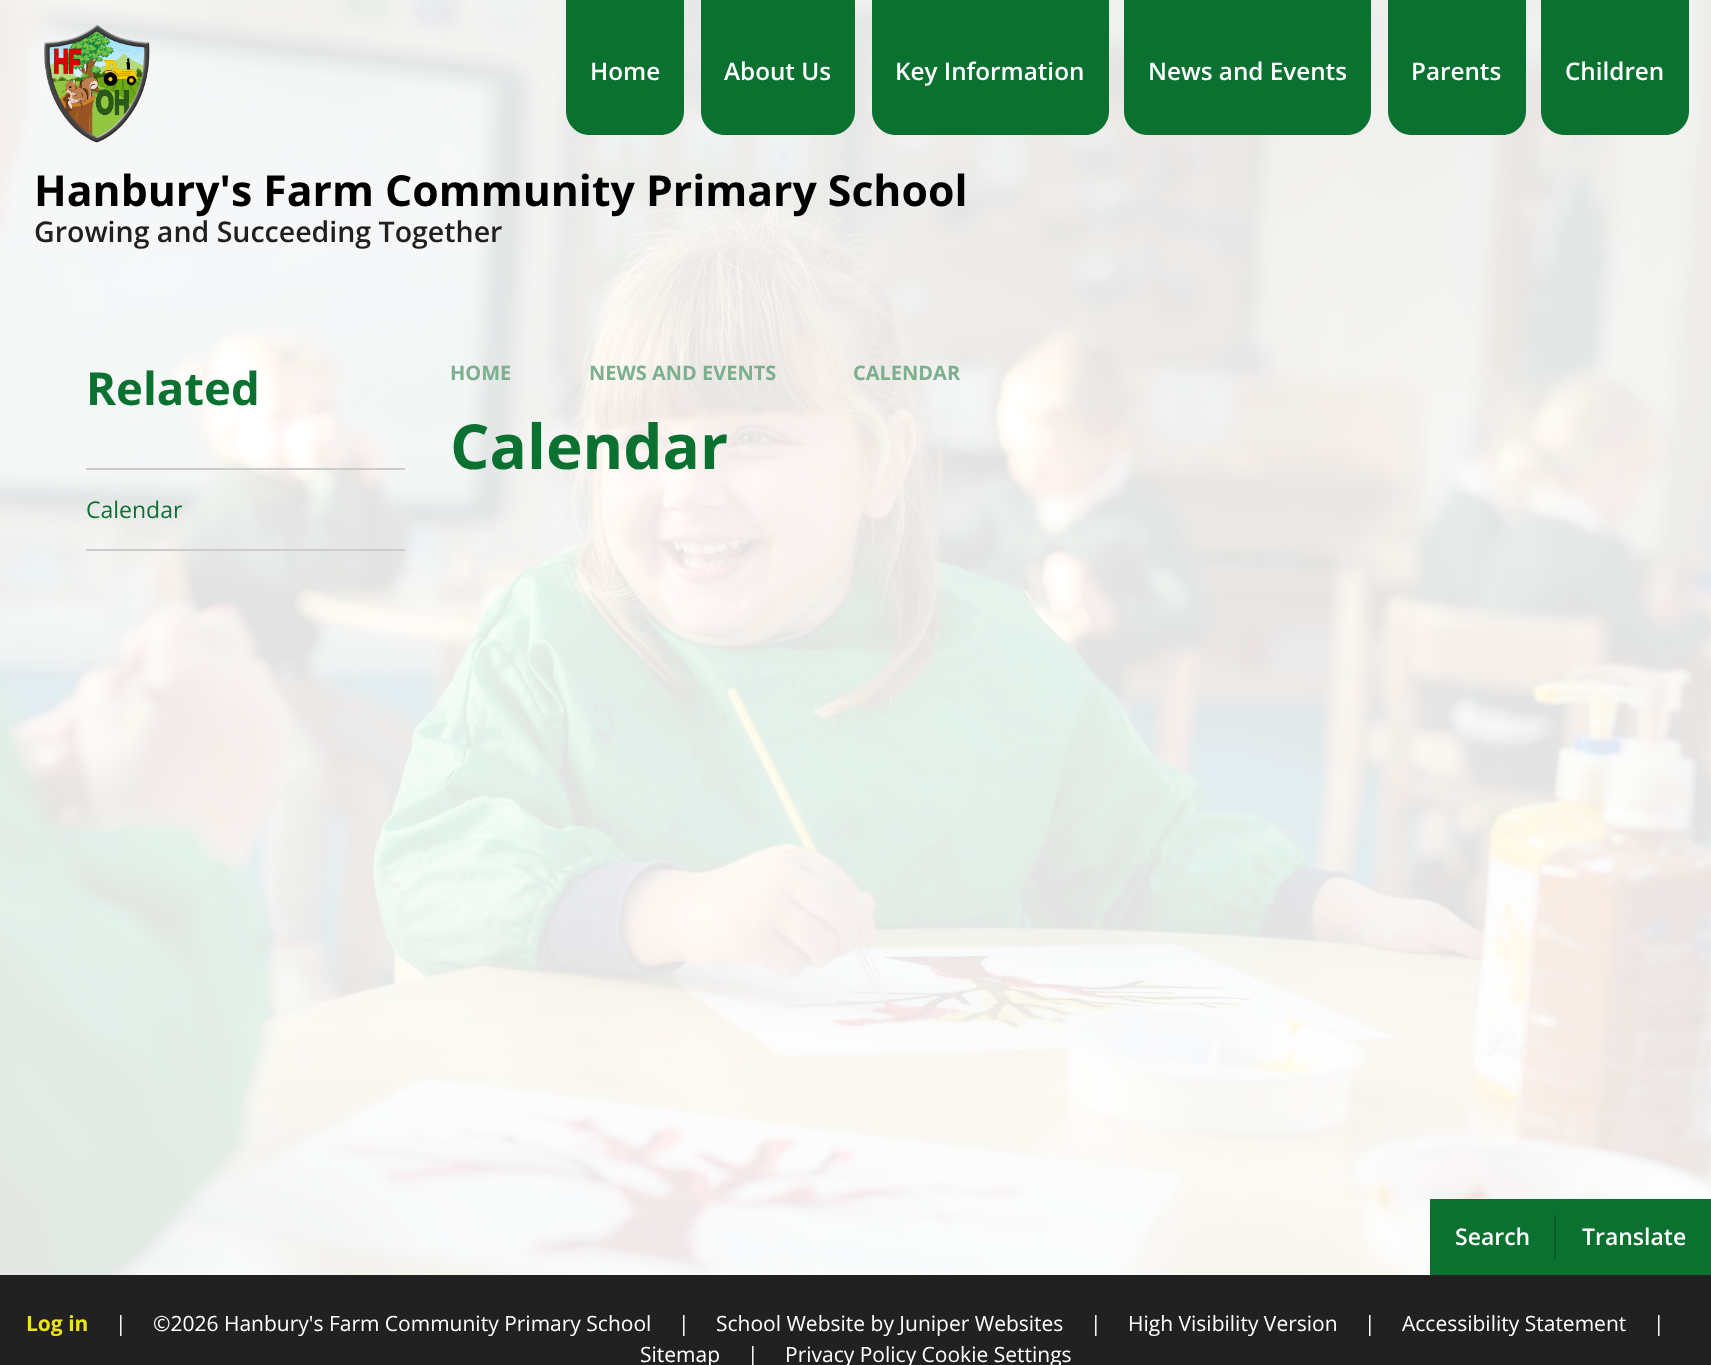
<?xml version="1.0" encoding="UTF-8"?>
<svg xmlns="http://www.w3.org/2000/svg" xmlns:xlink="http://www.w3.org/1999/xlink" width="1711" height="1365">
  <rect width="100%" height="100%" fill="#ffffff" />
  <image x="0" y="0" width="1711" height="1275" xlink:href="image1.png" />
  <rect width="1711" height="270" fill="#ffffff" fill-opacity="0.89" />
  <path d="M 566 0 h 118 v 111 c 0 13.5 -10.5 24 -24 24 h -70 c -13.5 0 -24 -10.5 -24 -24 z" fill="#0b7130" />
  <path d="M 701 0 h 154 v 111 c 0 13.5 -10.5 24 -24 24 h -106 c -13.5 0 -24 -10.5 -24 -24 z" fill="#0b7130" />
  <path d="M 872 0 h 237 v 111 c 0 13.5 -10.5 24 -24 24 h -189 c -13.5 0 -24 -10.5 -24 -24 z" fill="#0b7130" />
  <path d="M 1124 0 h 247 v 111 c 0 13.5 -10.5 24 -24 24 h -199 c -13.5 0 -24 -10.5 -24 -24 z" fill="#0b7130" />
  <path d="M 1388 0 h 138 v 111 c 0 13.5 -10.5 24 -24 24 h -90 c -13.5 0 -24 -10.5 -24 -24 z" fill="#0b7130" />
  <path d="M 1541 0 h 148 v 111 c 0 13.5 -10.5 24 -24 24 h -100 c -13.5 0 -24 -10.5 -24 -24 z" fill="#0b7130" />
  <image x="44" y="24" width="106" height="119" xlink:href="image2.png" />
  <rect y="270" width="1711" height="1005" fill="#ffffff" fill-opacity="0.89" />
  <rect x="86" y="468" width="319" height="2" fill="#cccccc" />
  <rect x="86" y="549" width="319" height="2" fill="#cccccc" />
  <rect x="1430" y="1199" width="281" height="76" fill="#0b7130" />
  <rect x="1554" y="1215" width="2" height="44" fill="#095a26" />
  <rect y="1275" width="1711" height="90" fill="#212121" />
  <text x="590" y="80" style="font-family: Open Sans; font-size: 24.25px; font-weight: 600; fill: #ffffff">Home</text>
  <text x="724" y="80" style="font-family: Open Sans; font-size: 24.25px; font-weight: 600; fill: #ffffff">About Us</text>
  <text x="895" y="80" style="font-family: Open Sans; font-size: 24.25px; font-weight: 600; fill: #ffffff">Key Information</text>
  <text x="1148" y="80" style="font-family: Open Sans; font-size: 24.25px; font-weight: 600; fill: #ffffff">News and Events</text>
  <text x="1411" y="80" style="font-family: Open Sans; font-size: 24.25px; font-weight: 600; fill: #ffffff">Parents</text>
  <text x="1565" y="80" style="font-family: Open Sans; font-size: 24.25px; font-weight: 600; fill: #ffffff">Children</text>
  <text x="34" y="206" style="font-family: Open Sans; font-size: 42.75px; font-weight: bold; fill: #000000">Hanbury's Farm Community Primary School</text>
  <text x="34" y="242" style="font-family: Open Sans; font-size: 28.5px; font-weight: 600; fill: #202020">Growing and Succeeding Together</text>
  <text x="86" y="405" style="font-family: Open Sans; font-size: 45.5px; font-weight: bold; fill: #0b7130">Related</text>
  <text x="86" y="518" style="font-family: Open Sans; font-size: 23px; fill: #0b7130">Calendar</text>
  <text x="450" y="380" style="font-family: Open Sans; font-size: 20px; font-weight: bold; fill: #7baf8f">HOME</text>
  <text x="589" y="380" style="font-family: Open Sans; font-size: 20px; font-weight: bold; fill: #7baf8f">NEWS AND EVENTS</text>
  <text x="853" y="380" style="font-family: Open Sans; font-size: 20px; font-weight: bold; fill: #7baf8f">CALENDAR</text>
  <text x="450" y="469" style="font-family: Open Sans; font-size: 62px; font-weight: bold; fill: #0b7130">Calendar</text>
  <text x="1455" y="1245" style="font-family: Open Sans; font-size: 23px; font-weight: 600; fill: #ffffff">Search</text>
  <text x="1582" y="1245" style="font-family: Open Sans; font-size: 23px; font-weight: 600; fill: #ffffff">Translate</text>
  <text x="26" y="1331" style="font-family: Open Sans; font-size: 21px; font-weight: bold; fill: #ece517">Log in</text>
  <text x="115" y="1331" style="font-family: Open Sans; font-size: 21px; fill: #ffffff">|</text>
  <text x="153" y="1331" style="font-family: Open Sans; font-size: 21px; fill: #ffffff">©2026 Hanbury's Farm Community Primary School</text>
  <text x="678" y="1331" style="font-family: Open Sans; font-size: 21px; fill: #ffffff">|</text>
  <text x="716" y="1331" style="font-family: Open Sans; font-size: 21px; fill: #ffffff">School Website by Juniper Websites</text>
  <text x="1090" y="1331" style="font-family: Open Sans; font-size: 21px; fill: #ffffff">|</text>
  <text x="1128" y="1331" style="font-family: Open Sans; font-size: 21px; fill: #ffffff">High Visibility Version</text>
  <text x="1364" y="1331" style="font-family: Open Sans; font-size: 21px; fill: #ffffff">|</text>
  <text x="1402" y="1331" style="font-family: Open Sans; font-size: 21px; fill: #ffffff">Accessibility Statement</text>
  <text x="1653" y="1331" style="font-family: Open Sans; font-size: 21px; fill: #ffffff">|</text>
  <text x="640" y="1362" style="font-family: Open Sans; font-size: 21px; fill: #ffffff">Sitemap</text>
  <text x="747" y="1362" style="font-family: Open Sans; font-size: 21px; fill: #ffffff">|</text>
  <text x="785" y="1362" style="font-family: Open Sans; font-size: 21px; fill: #ffffff">Privacy Policy Cookie Settings</text>
</svg>
